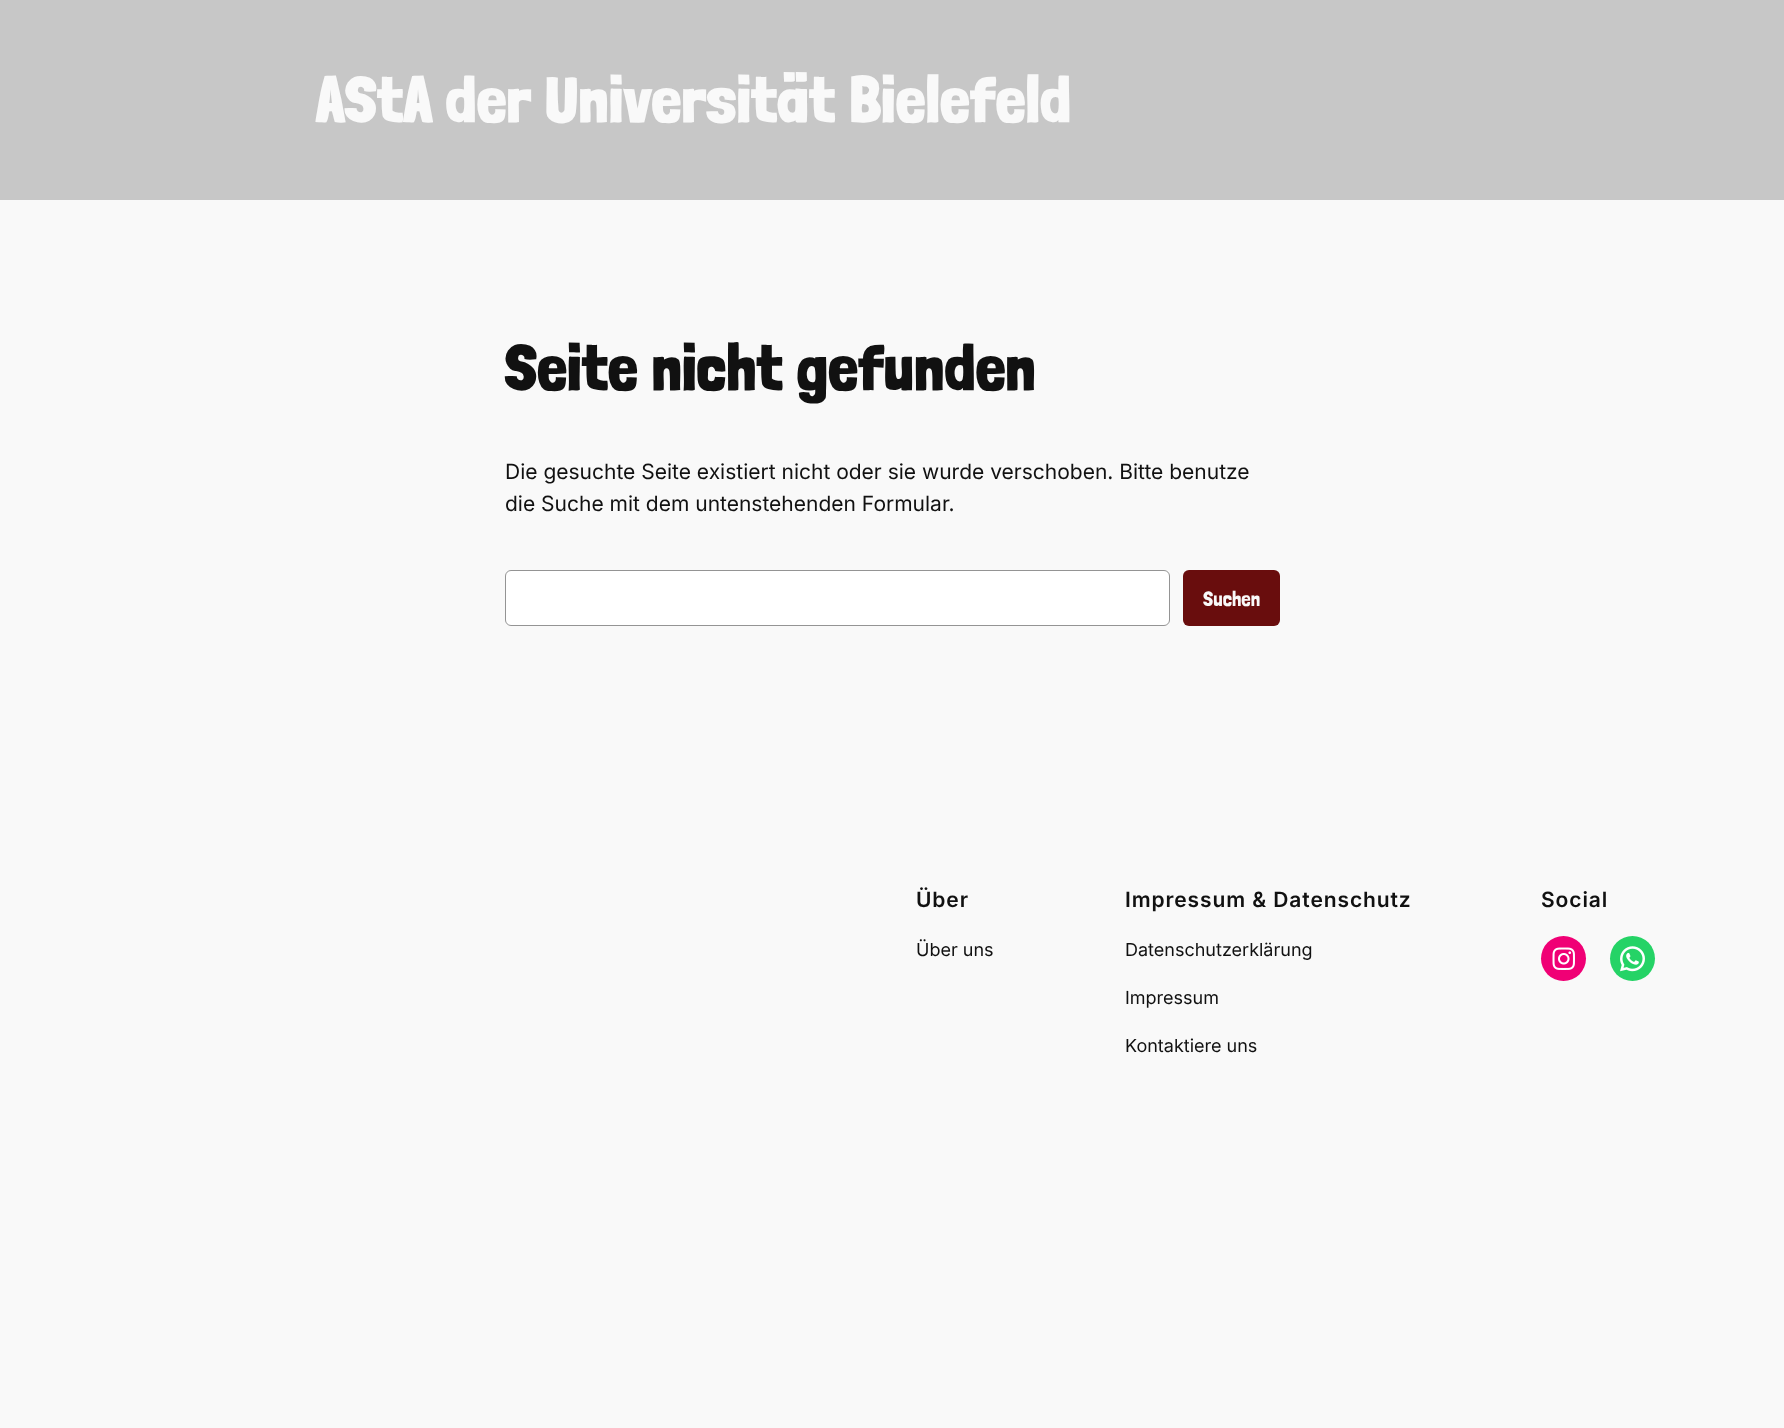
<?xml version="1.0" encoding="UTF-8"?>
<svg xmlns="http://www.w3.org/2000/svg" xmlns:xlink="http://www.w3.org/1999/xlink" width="1784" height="1428">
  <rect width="100%" height="100%" fill="#f9f9f9" />
  <rect width="1784" height="200" fill="#c7c7c7" />
  <rect x="505.5" y="570.5" width="664" height="55" rx="5.5" fill="#ffffff" stroke="#949494" />
  <rect x="1183" y="570" width="97" height="56" rx="6" fill="#690d0d" />
  <circle cx="1563.5" cy="958.5" r="22.5" fill="#f00075" />
  <image x="1552" y="947" width="23" height="23" xlink:href="image1.png" />
  <circle cx="1632.5" cy="958.5" r="22.5" fill="#25d366" />
  <image x="1620" y="946" width="25" height="26" xlink:href="image2.png" />
  <text x="316" y="122" style="font-family: Londrina Solid; font-size: 65.4px; font-weight: 900; letter-spacing: 0.9px; fill: #f9f9f9">AStA der Universität Bielefeld</text>
  <text x="505" y="390" style="font-family: Londrina Solid; font-size: 65.4px; font-weight: 900; letter-spacing: 0.9px; fill: #111111">Seite nicht gefunden</text>
  <text x="505" y="479" style="font-family: Inter; font-size: 21px; fill: #111111">Die gesuchte Seite existiert nicht oder sie wurde verschoben. Bitte benutze</text>
  <text x="505" y="511" style="font-family: Inter; font-size: 21px; fill: #111111">die Suche mit dem untenstehenden Formular.</text>
  <text x="1203" y="606" style="font-family: Londrina Solid; font-size: 21px; fill: #f9f9f9">Suchen</text>
  <text x="916" y="907" style="font-family: Inter; font-size: 21px; font-weight: 600; letter-spacing: 0.9px; fill: #111111">Über</text>
  <text x="916" y="956" style="font-family: Inter; font-size: 18px; fill: #111111">Über uns</text>
  <text x="1125" y="907" style="font-family: Inter; font-size: 21px; font-weight: 600; letter-spacing: 0.9px; fill: #111111">Impressum &amp; Datenschutz</text>
  <text x="1125" y="956" style="font-family: Inter; font-size: 18px; fill: #111111">Datenschutzerklärung</text>
  <text x="1125" y="1004" style="font-family: Inter; font-size: 18px; fill: #111111">Impressum</text>
  <text x="1125" y="1052" style="font-family: Inter; font-size: 18px; fill: #111111">Kontaktiere uns</text>
  <text x="1541" y="907" style="font-family: Inter; font-size: 21px; font-weight: 600; letter-spacing: 0.9px; fill: #111111">Social</text>
</svg>
